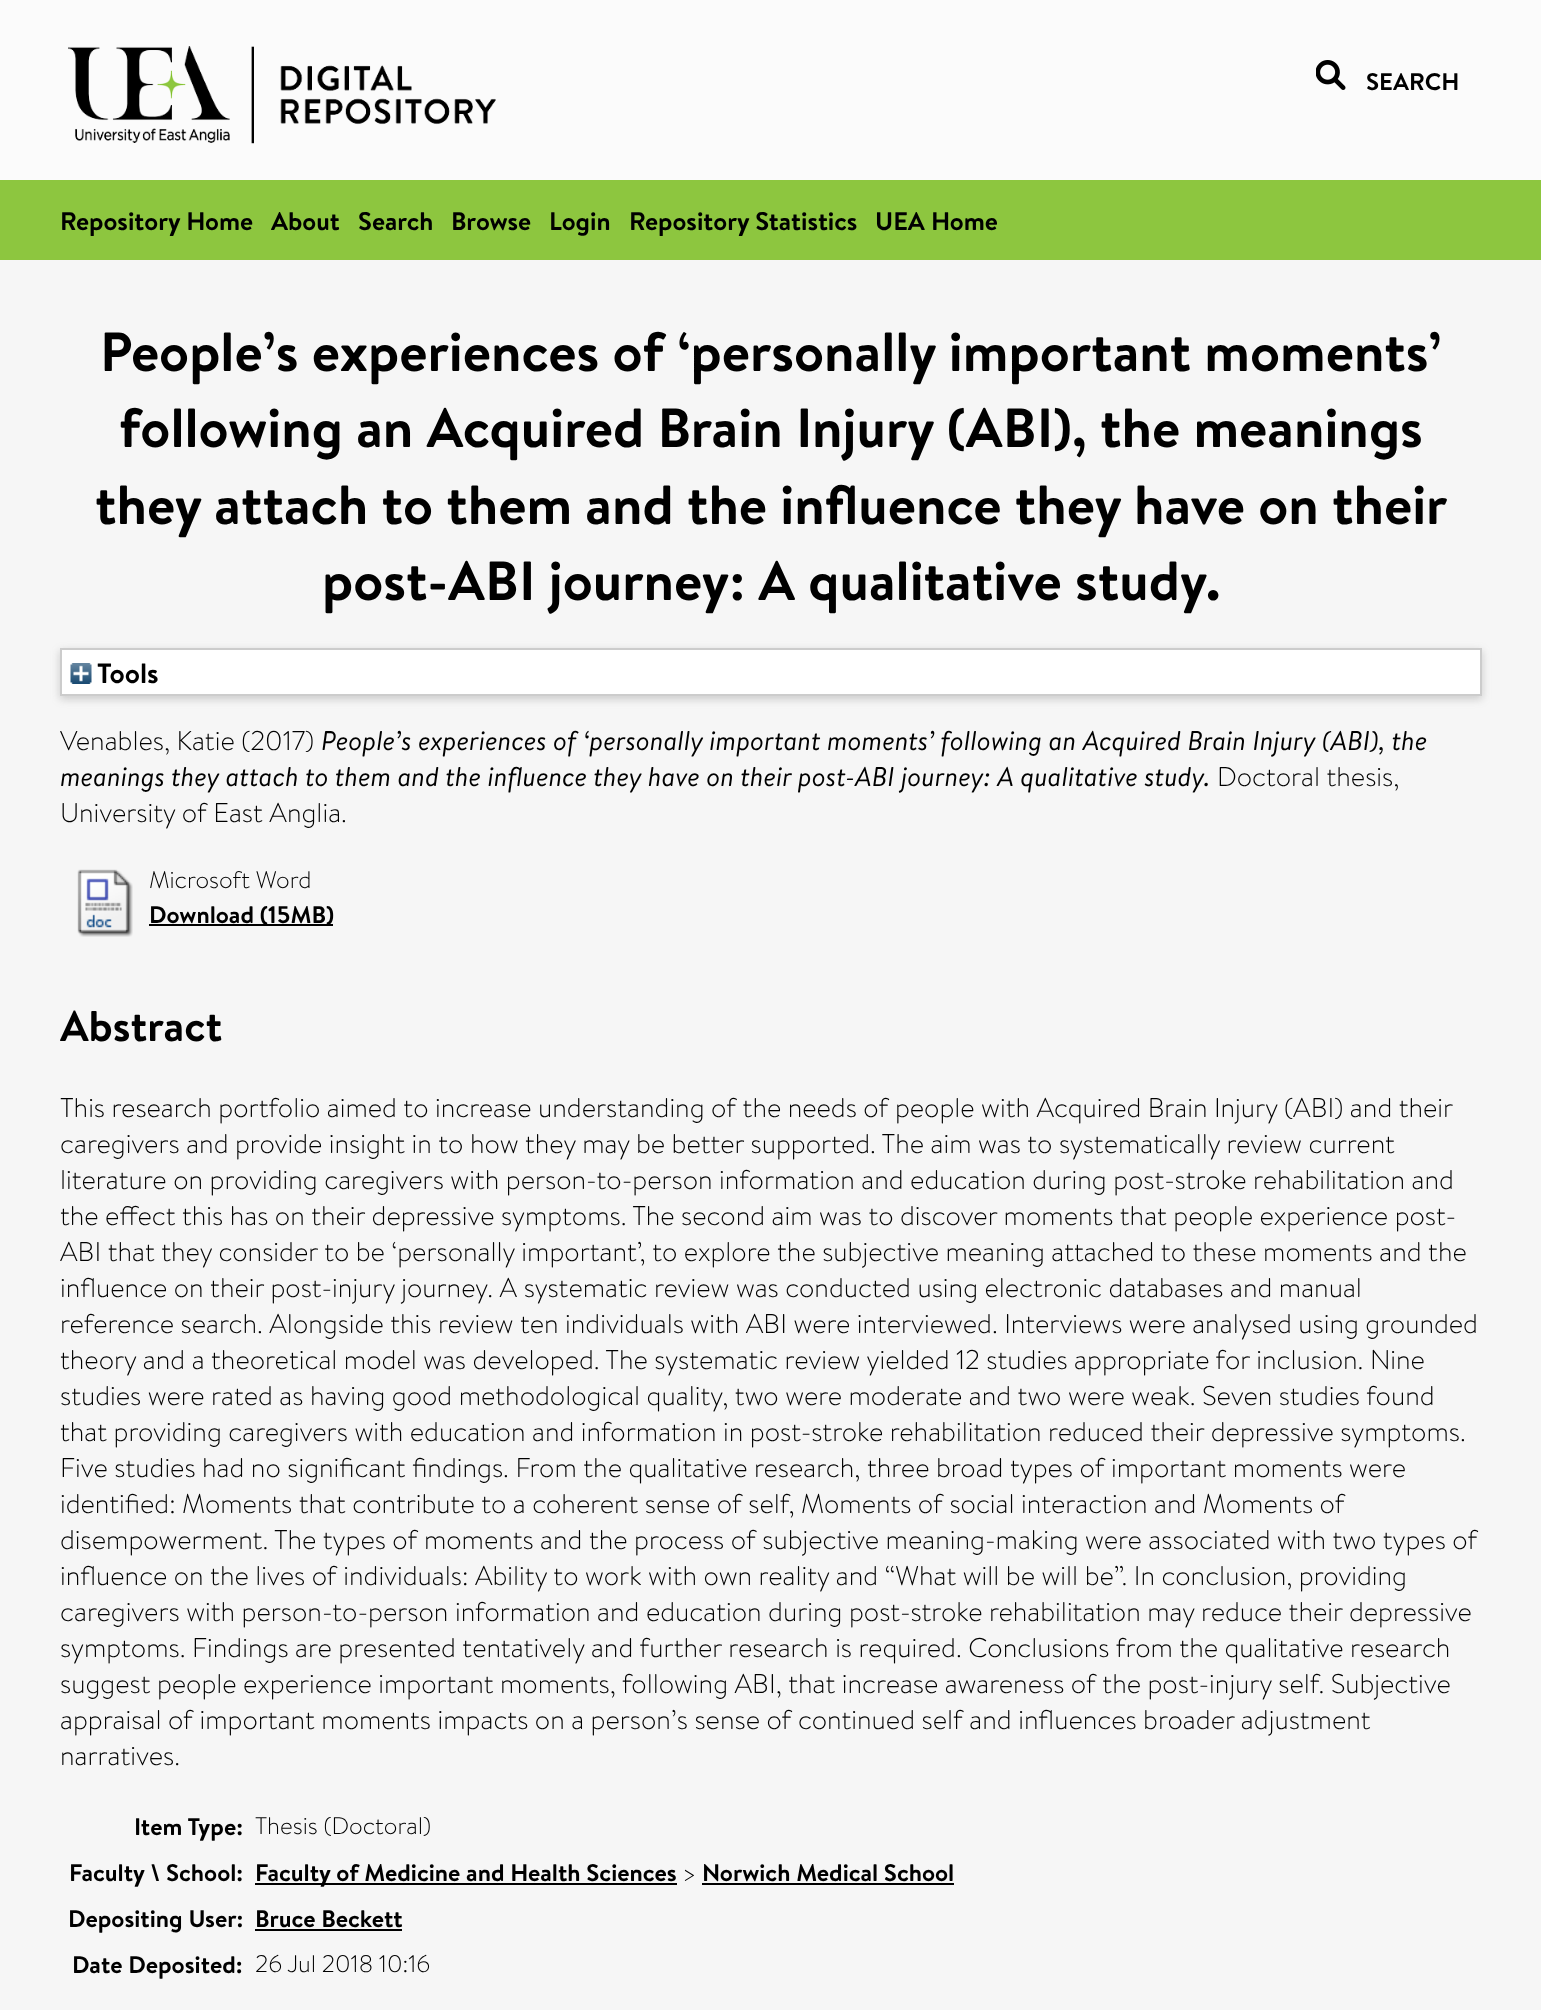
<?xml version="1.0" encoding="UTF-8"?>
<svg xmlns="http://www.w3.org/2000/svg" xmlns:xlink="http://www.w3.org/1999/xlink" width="1541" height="2010">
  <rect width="100%" height="100%" fill="#f6f6f6" />
  <rect width="1541" height="180" fill="#fbfbfb" />
  <image x="68" y="46" width="428" height="98" xlink:href="image1.png" />
  <image x="1316" y="60" width="30" height="30" xlink:href="image2.png" />
  <rect y="180" width="1541" height="80" fill="#8dc63f" />
  <rect x="60" y="651" width="1422" height="48" fill="#646464" fill-opacity="0.3" filter="blur(4.5px)" />
  <rect x="61" y="649" width="1420" height="46" fill="#ffffff" stroke="#cccccc" stroke-width="2" />
  <image x="70" y="663" width="22" height="21" xlink:href="image3.png" />
  <image x="77" y="869" width="56" height="68" xlink:href="image4.png" />
  <rect x="149" y="924" width="184" height="2" fill="#000000" />
  <rect x="255" y="1883" width="422" height="2" fill="#000000" />
  <rect x="702" y="1883" width="252" height="2" fill="#000000" />
  <rect x="255" y="1929" width="147" height="2" fill="#000000" />
  <text x="1366" y="90" style="font-family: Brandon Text; font-size: 24px; font-weight: bold; fill: #000000">SEARCH</text>
  <text x="60" y="230" style="font-family: Brandon Text; font-size: 25.5px; font-weight: bold; fill: #000000">Repository Home</text>
  <text x="271" y="230" style="font-family: Brandon Text; font-size: 25.5px; font-weight: bold; fill: #000000">About</text>
  <text x="358" y="230" style="font-family: Brandon Text; font-size: 25.5px; font-weight: bold; fill: #000000">Search</text>
  <text x="451" y="230" style="font-family: Brandon Text; font-size: 25.5px; font-weight: bold; fill: #000000">Browse</text>
  <text x="549" y="230" style="font-family: Brandon Text; font-size: 25.5px; font-weight: bold; fill: #000000">Login</text>
  <text x="629" y="230" style="font-family: Brandon Text; font-size: 25.5px; font-weight: bold; fill: #000000">Repository Statistics</text>
  <text x="875" y="230" style="font-family: Brandon Text; font-size: 25.5px; font-weight: bold; fill: #000000">UEA Home</text>
  <text x="100" y="371" style="font-family: Brandon Text; font-size: 55.2px; font-weight: bold; fill: #000000">People’s experiences of ‘personally important moments’</text>
  <text x="119" y="447" style="font-family: Brandon Text; font-size: 55.2px; font-weight: bold; fill: #000000">following an Acquired Brain Injury (ABI), the meanings</text>
  <text x="95" y="524" style="font-family: Brandon Text; font-size: 55.2px; font-weight: bold; fill: #000000">they attach to them and the influence they have on their</text>
  <text x="322" y="600" style="font-family: Brandon Text; font-size: 55.2px; font-weight: bold; fill: #000000">post-ABI journey: A qualitative study.</text>
  <text x="97" y="683" style="font-family: Brandon Text; font-size: 28px; font-weight: bold; fill: #000000">Tools</text>
  <text x="60" y="750" style="font-family: Brandon Text; font-size: 27px; font-weight: 300; fill: #000000">Venables, Katie (2017)</text>
  <text x="321" y="750" style="font-family: Brandon Text; font-size: 27px; font-style: italic; fill: #000000">People’s experiences of ‘personally important moments’ following an Acquired Brain Injury (ABI), the</text>
  <text x="60" y="786" style="font-family: Brandon Text; font-size: 27px; font-style: italic; fill: #000000">meanings they attach to them and the influence they have on their post-ABI journey: A qualitative study.</text>
  <text x="1217" y="786" style="font-family: Brandon Text; font-size: 27px; font-weight: 300; fill: #000000">Doctoral thesis,</text>
  <text x="60" y="822" style="font-family: Brandon Text; font-size: 27px; font-weight: 300; fill: #000000">University of East Anglia.</text>
  <text x="149" y="888" style="font-family: Brandon Text; font-size: 24px; font-weight: 300; fill: #000000">Microsoft Word</text>
  <text x="149" y="923" style="font-family: Brandon Text; font-size: 24px; font-weight: bold; fill: #000000">Download (15MB)</text>
  <text x="60" y="1041" style="font-family: Brandon Text; font-size: 43px; font-weight: bold; fill: #000000">Abstract</text>
  <text x="60" y="1117" style="font-family: Brandon Text; font-size: 27px; font-weight: 300; fill: #000000">This research portfolio aimed to increase understanding of the needs of people with Acquired Brain Injury (ABI) and their</text>
  <text x="60" y="1153" style="font-family: Brandon Text; font-size: 27px; font-weight: 300; fill: #000000">caregivers and provide insight in to how they may be better supported. The aim was to systematically review current</text>
  <text x="60" y="1189" style="font-family: Brandon Text; font-size: 27px; font-weight: 300; fill: #000000">literature on providing caregivers with person-to-person information and education during post-stroke rehabilitation and</text>
  <text x="60" y="1225" style="font-family: Brandon Text; font-size: 27px; font-weight: 300; fill: #000000">the effect this has on their depressive symptoms. The second aim was to discover moments that people experience post-</text>
  <text x="60" y="1261" style="font-family: Brandon Text; font-size: 27px; font-weight: 300; fill: #000000">ABI that they consider to be ‘personally important’, to explore the subjective meaning attached to these moments and the</text>
  <text x="60" y="1297" style="font-family: Brandon Text; font-size: 27px; font-weight: 300; fill: #000000">influence on their post-injury journey. A systematic review was conducted using electronic databases and manual</text>
  <text x="60" y="1333" style="font-family: Brandon Text; font-size: 27px; font-weight: 300; fill: #000000">reference search. Alongside this review ten individuals with ABI were interviewed. Interviews were analysed using grounded</text>
  <text x="60" y="1369" style="font-family: Brandon Text; font-size: 27px; font-weight: 300; fill: #000000">theory and a theoretical model was developed. The systematic review yielded 12 studies appropriate for inclusion. Nine</text>
  <text x="60" y="1405" style="font-family: Brandon Text; font-size: 27px; font-weight: 300; fill: #000000">studies were rated as having good methodological quality, two were moderate and two were weak. Seven studies found</text>
  <text x="60" y="1441" style="font-family: Brandon Text; font-size: 27px; font-weight: 300; fill: #000000">that providing caregivers with education and information in post-stroke rehabilitation reduced their depressive symptoms.</text>
  <text x="60" y="1477" style="font-family: Brandon Text; font-size: 27px; font-weight: 300; fill: #000000">Five studies had no significant findings. From the qualitative research, three broad types of important moments were</text>
  <text x="60" y="1513" style="font-family: Brandon Text; font-size: 27px; font-weight: 300; fill: #000000">identified: Moments that contribute to a coherent sense of self, Moments of social interaction and Moments of</text>
  <text x="60" y="1549" style="font-family: Brandon Text; font-size: 27px; font-weight: 300; fill: #000000">disempowerment. The types of moments and the process of subjective meaning-making were associated with two types of</text>
  <text x="60" y="1585" style="font-family: Brandon Text; font-size: 27px; font-weight: 300; fill: #000000">influence on the lives of individuals: Ability to work with own reality and “What will be will be”. In conclusion, providing</text>
  <text x="60" y="1621" style="font-family: Brandon Text; font-size: 27px; font-weight: 300; fill: #000000">caregivers with person-to-person information and education during post-stroke rehabilitation may reduce their depressive</text>
  <text x="60" y="1657" style="font-family: Brandon Text; font-size: 27px; font-weight: 300; fill: #000000">symptoms. Findings are presented tentatively and further research is required. Conclusions from the qualitative research</text>
  <text x="60" y="1693" style="font-family: Brandon Text; font-size: 27px; font-weight: 300; fill: #000000">suggest people experience important moments, following ABI, that increase awareness of the post-injury self. Subjective</text>
  <text x="60" y="1729" style="font-family: Brandon Text; font-size: 27px; font-weight: 300; fill: #000000">appraisal of important moments impacts on a person’s sense of continued self and influences broader adjustment</text>
  <text x="60" y="1765" style="font-family: Brandon Text; font-size: 27px; font-weight: 300; fill: #000000">narratives.</text>
  <text x="134" y="1835" style="font-family: Brandon Text; font-size: 24px; font-weight: bold; fill: #000000">Item Type:</text>
  <text x="255" y="1834" style="font-family: Brandon Text; font-size: 24px; font-weight: 300; fill: #000000">Thesis (Doctoral)</text>
  <text x="69" y="1881" style="font-family: Brandon Text; font-size: 24px; font-weight: bold; fill: #000000">Faculty \ School:</text>
  <text x="255" y="1881" style="font-family: Brandon Text; font-size: 24px; font-weight: bold; fill: #000000">Faculty of Medicine and Health Sciences</text>
  <text x="682" y="1881" style="font-family: Brandon Text; font-size: 24px; font-weight: 300; fill: #000000">&gt;</text>
  <text x="702" y="1881" style="font-family: Brandon Text; font-size: 24px; font-weight: bold; fill: #000000">Norwich Medical School</text>
  <text x="68" y="1927" style="font-family: Brandon Text; font-size: 24px; font-weight: bold; fill: #000000">Depositing User:</text>
  <text x="255" y="1927" style="font-family: Brandon Text; font-size: 24px; font-weight: bold; fill: #000000">Bruce Beckett</text>
  <text x="72" y="1973" style="font-family: Brandon Text; font-size: 24px; font-weight: bold; fill: #000000">Date Deposited:</text>
  <text x="255" y="1972" style="font-family: Brandon Text; font-size: 24px; font-weight: 300; fill: #000000">26 Jul 2018 10:16</text>
</svg>
